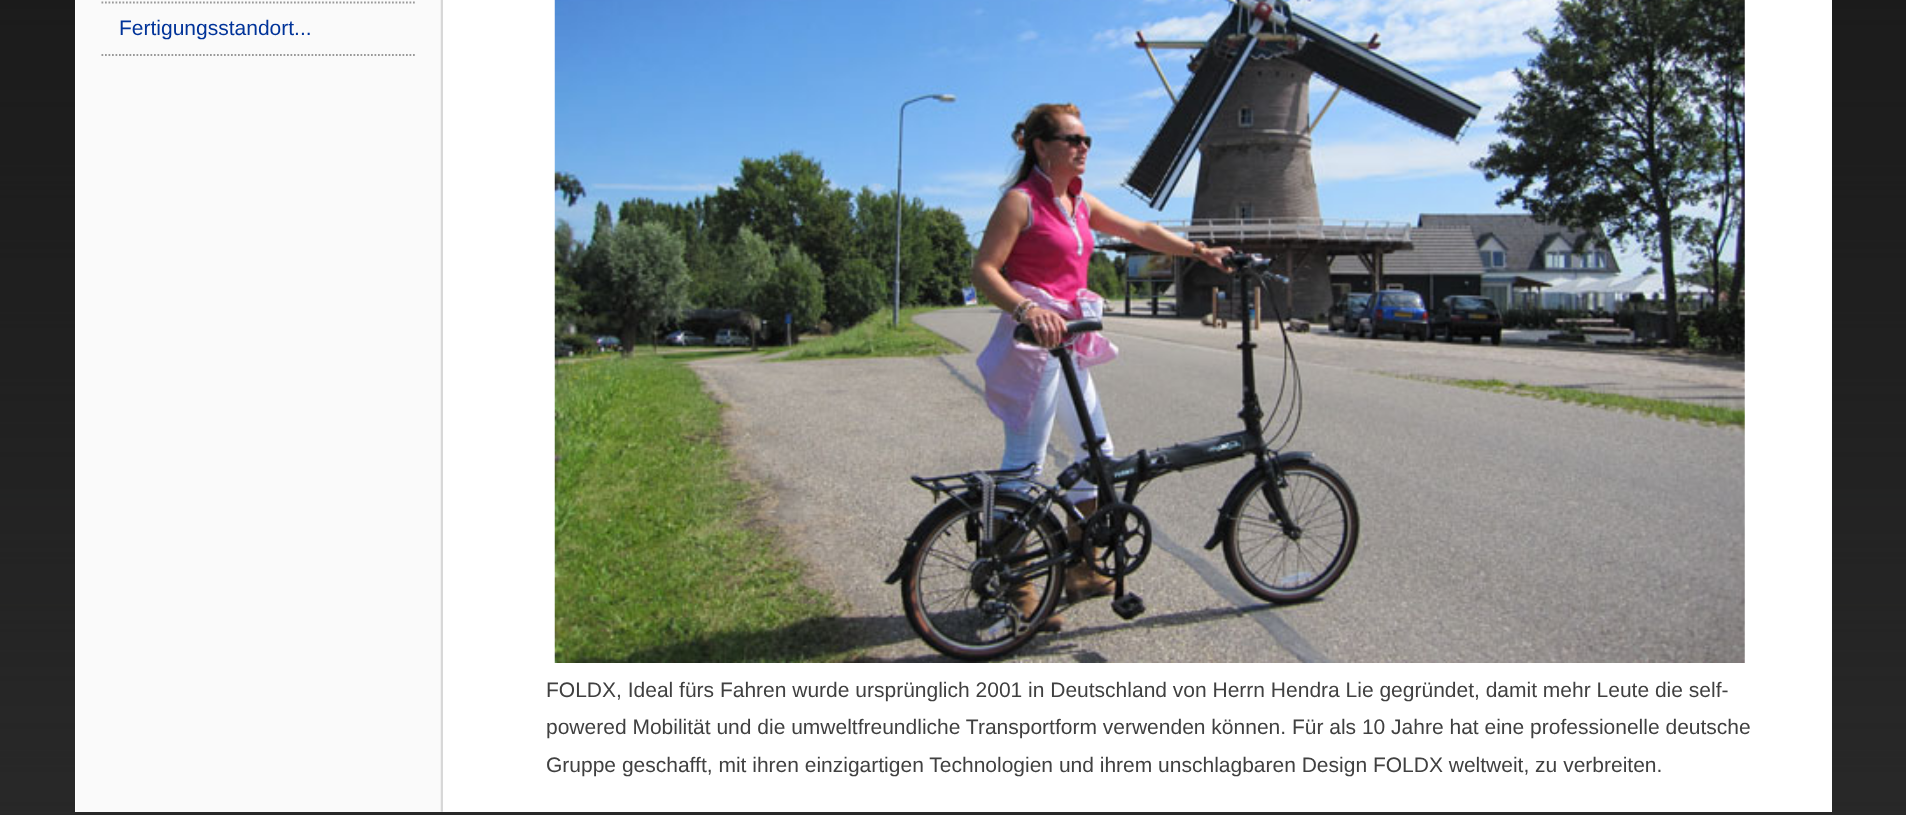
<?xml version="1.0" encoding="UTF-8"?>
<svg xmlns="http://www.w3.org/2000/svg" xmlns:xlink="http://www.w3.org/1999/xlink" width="1906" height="815">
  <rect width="100%" height="100%" fill="#ffffff" />
  <image x="0" y="0" width="1906" height="815" xlink:href="image1.png" />
  <rect x="75" width="1757" height="812" fill="#ffffff" />
  <image x="76" y="0" width="367" height="812" xlink:href="image2.png" />
  <path d="M 101.5 2.5 h 315" fill="none" stroke="#999999" stroke-width="1.8" stroke-dasharray="1.75 1.75" />
  <path d="M 101.5 55 h 315" fill="none" stroke="#999999" stroke-width="1.8" stroke-dasharray="1.75 1.75" />
  <image x="554" y="0" width="1191" height="663" xlink:href="image3.png" />
  <text x="119" y="35" style="font-family: Liberation Sans; font-size: 21px; fill: #003399">Fertigungsstandort...</text>
  <text x="546" y="697" style="font-family: Liberation Sans; font-size: 21px; fill: #404040">FOLDX, Ideal fürs Fahren wurde ursprünglich 2001 in Deutschland von Herrn Hendra Lie gegründet, damit mehr Leute die self-</text>
  <text x="546" y="734" style="font-family: Liberation Sans; font-size: 21px; fill: #404040">powered Mobilität und die umweltfreundliche Transportform verwenden können. Für als 10 Jahre hat eine professionelle deutsche</text>
  <text x="546" y="772" style="font-family: Liberation Sans; font-size: 21px; fill: #404040">Gruppe geschafft, mit ihren einzigartigen Technologien und ihrem unschlagbaren Design FOLDX weltweit, zu verbreiten.</text>
</svg>
